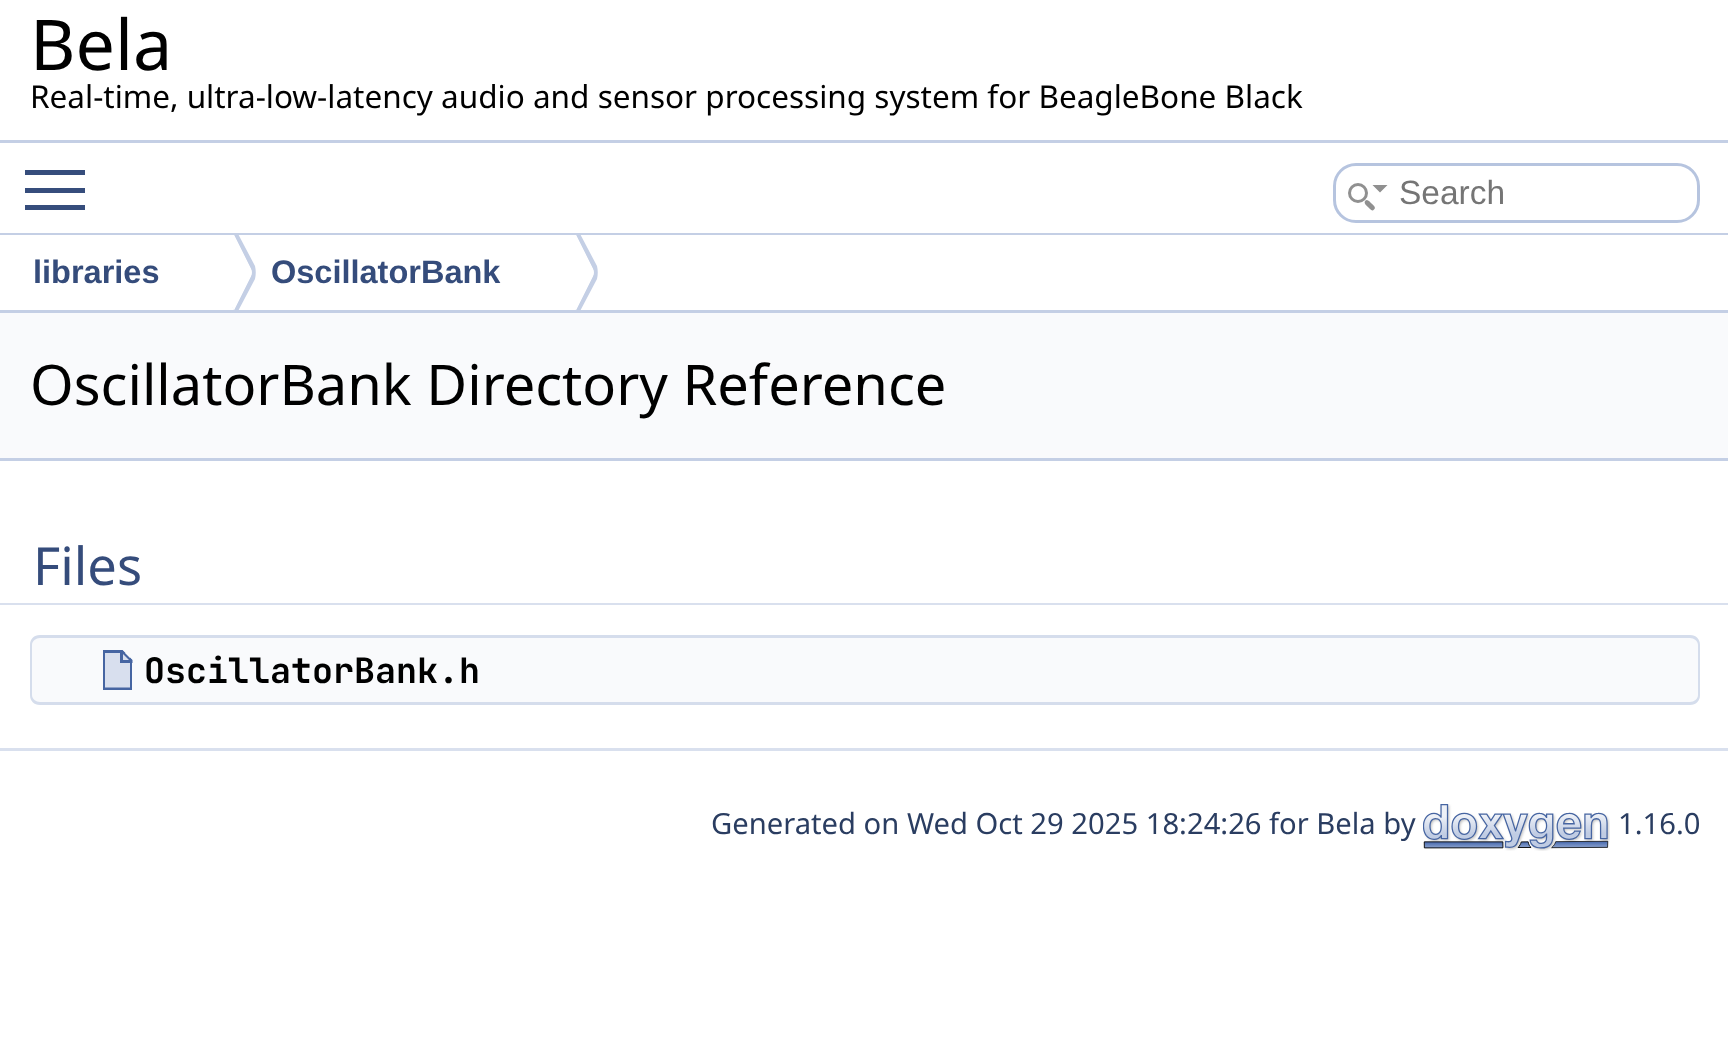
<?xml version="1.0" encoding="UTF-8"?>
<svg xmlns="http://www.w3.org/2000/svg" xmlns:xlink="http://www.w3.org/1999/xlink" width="1728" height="1054">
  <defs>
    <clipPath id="clip1"><rect y="235" width="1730" height="75" /></clipPath>
  </defs>
  <rect width="100%" height="100%" fill="#ffffff" />
  <rect y="140" width="1728" height="3" fill="#c4cfe5" />
  <rect x="25" y="188" width="60" height="5" fill="#364d7c" />
  <rect x="25" y="170" width="60" height="5" fill="#364d7c" />
  <rect x="25" y="205" width="60" height="5" fill="#364d7c" />
  <rect x="1334.5" y="164.5" width="364" height="57" rx="21.5" fill="none" stroke="#b6c4df" stroke-width="3" />
  <circle cx="1358" cy="193" r="8.5" fill="none" stroke="#909090" stroke-width="3" />
  <path d="M 1372.5 185 h 15 l -7.5 7.5 z m -7 15.5 c 2 -2 4.5 1.5 6 3 c 1.5 1.5 5 4 2.5 6 c -2 2.5 -4.5 -1 -6 -2.5 c -1.5 -1.5 -5 -4 -2.5 -6.5 z" fill="#909090" />
  <rect y="233" width="1728" height="2" fill="#c4cfe5" />
  <rect y="310" width="1728" height="3" fill="#c4cfe5" />
  <g clip-path="url(#clip1)">
    <path d="M 236 230 l -2 5 l 17 34 c 1 2 1 5 0 7 l -17 34 l -2 -4 l 4 9 l 19 -36 c 1 -4 1 -9 0 -13 z" fill="#c4cfe5" />
  </g>
  <path d="M 234 235 l 17 34 c 1 2 1 5 0 7 l -17 34 c -10 -21 -10 -54 0 -75 z" fill="#ffffff" />
  <g clip-path="url(#clip1)">
    <path d="M 578 230 l -2 5 l 17 34 c 1 2 1 5 0 7 l -17 34 l -1 -3 l 3 8 l 19 -36 c 1 -4 1 -9 0 -13 z" fill="#c4cfe5" />
  </g>
  <path d="M 576 235 l 17 34 c 1 2 1 5 0 7 l -17 34 c -10 -21 -10 -54 0 -75 z" fill="#ffffff" />
  <rect y="313" width="1728" height="145" fill="#f9fafc" />
  <rect y="458" width="1728" height="3" fill="#c4cfe5" />
  <path d="M 0 520 v 85 h 1665 v -3 h -1633 v -82 z" fill="#d9e0ee" />
  <path d="M 65 602 v 3 h 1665 v -85 h -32 v 82 z" fill="#d9e0ee" />
  <path d="M 0 518 v 85 h 1665 v -1 h -1633 v -84 z" fill="#ffffff" />
  <path d="M 65 602 v 1 h 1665 v -85 h -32 v 84 z" fill="#ffffff" />
  <path d="M 40 635 h 100 v 70 h -100 c -5.5 0 -10 -4.5 -10 -10 v -50 c 0 -5.5 4.5 -10 10 -10 z" fill="#f9fafc" />
  <path d="M 40 635 h 100 v 70 h -100 c -6 0 -10 -4 -10 -10 v -50 c 0 -6 4 -10 10 -10 z m 0 3 h 100 v 64 h -100 c -4 0 -8 -3 -8 -7 v -50 c 0 -4 4 -7 8 -7 z" fill="#d5ddec" fill-rule="evenodd" />
  <path d="M 103 650 v 40 h 29 v -30 l -10 -10 z" fill="#4665a2" />
  <path d="M 105 653 v 34.5 h 25 v -26.5 l -8 -8 z" fill="#d8dfee" />
  <path d="M 120 650 v 13 h 12.5 v -3 l -2.5 -2.5 v 2.5 h -7 v -7 h 2.5 l -3 -3 z" fill="#4665a2" />
  <path d="M 140 635 h 1550 c 5.5 0 10 4.5 10 10 v 50 c 0 5.5 -4.5 10 -10 10 h -1550 z" fill="#f9fafc" />
  <path d="M 140 635 h 1550 c 6 0 10 4 10 10 v 50 c 0 6 -4 10 -10 10 h -1550 z m 0 3 h 1550 c 4 0 8 3 8 7 v 50 c 0 4 -4 7 -8 7 h -1550 z" fill="#d5ddec" fill-rule="evenodd" />
  <rect y="748" width="1728" height="3" fill="#d9e0ee" />
  <image x="1423" y="804" width="187" height="47" xlink:href="image1.png" />
  <text x="30" y="70" style="font-family: Noto Sans; font-size: 70px; fill: #000000">Bela</text>
  <text x="30" y="108" style="font-family: Noto Sans; font-size: 31.5px; fill: #000000">Real-time, ultra-low-latency audio and sensor processing system for BeagleBone Black</text>
  <text x="1399" y="204" style="font-family: Liberation Sans; font-size: 33.5px; fill: #757575">Search</text>
  <text x="33" y="283" style="font-family: Liberation Sans; font-size: 32.5px; font-weight: bold; fill: #354c7b">libraries</text>
  <text x="271" y="283" style="font-family: Liberation Sans; font-size: 32.5px; font-weight: bold; fill: #354c7b">OscillatorBank</text>
  <text x="30" y="405" style="font-family: Noto Sans; font-size: 56px; fill: #000000">OscillatorBank Directory Reference</text>
  <text x="33" y="585" style="font-family: Noto Sans; font-size: 52.5px; fill: #354c7b">Files</text>
  <text x="144" y="683" style="font-family: JetBrains Mono; font-size: 35px; font-weight: bold; fill: #000000">OscillatorBank.h</text>
  <text x="711" y="834" style="font-family: Noto Sans; font-size: 29.2px; fill: #2a3d61">Generated on Wed Oct 29 2025 18:24:26</text>
  <text x="1269" y="834" style="font-family: Noto Sans; font-size: 29.2px; fill: #2a3d61">for Bela by</text>
  <text x="1618" y="834" style="font-family: Noto Sans; font-size: 29.2px; fill: #2a3d61">1.16.0</text>
</svg>
